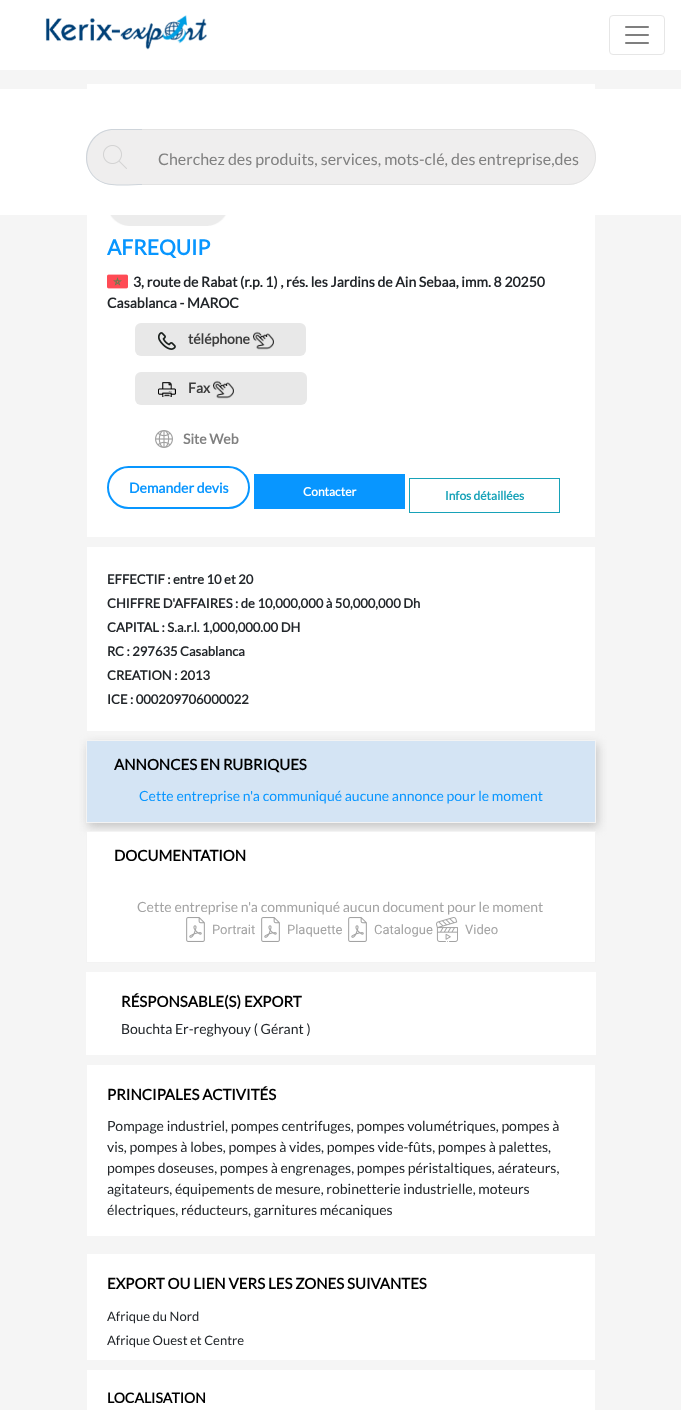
<?xml version="1.0" encoding="UTF-8"?>
<svg xmlns="http://www.w3.org/2000/svg" xmlns:xlink="http://www.w3.org/1999/xlink" width="681" height="1410">
  <rect width="100%" height="100%" fill="#f5f5f5" />
  <rect width="681" height="70" fill="#ffffff" />
  <image x="45" y="15" width="162" height="35" xlink:href="image1.png" />
  <rect x="609.5" y="15.5" width="55" height="39" rx="3.5" fill="none" stroke="#e6e6e6" />
  <image x="625" y="26" width="24" height="18" xlink:href="image2.png" />
  <rect x="87" y="84" width="508" height="453" fill="#ffffff" />
  <rect y="89" width="681" height="126" fill="#ffffff" />
  <path d="M 114 129 h 29 v 56 h -29 c -15.5 0 -28 -12.5 -28 -28 c 0 -15.5 12.5 -28 28 -28 z" fill="#efeeee" />
  <path d="M 114 129 h 29 v 56 c -10 0 -31 2 -40 -2 c -28 -12 -19 -54 11 -54 z m 0 1 h 29 v 54 c -10 0 -31 2 -40 -2 c -26 -11 -18 -52 11 -52 z" fill="#ced4da" fill-rule="evenodd" />
  <image x="103" y="145" width="24" height="24" xlink:href="image3.png" />
  <path d="M 142 129 h 426 c 15.5 0 28 12.5 28 28 c 0 15.5 -12.5 28 -28 28 h -426 z" fill="#efeeee" />
  <path d="M 142 129 h 426 c 15 0 28 13 28 28 c 0 15 -13 28 -28 28 h -426 z m 0 1 h 426 c 15 0 27 12 27 27 c 0 15 -12 27 -27 27 h -426 z" fill="#e3e3e3" fill-rule="evenodd" />
  <image x="110" y="215" width="117" height="11" xlink:href="image4.png" />
  <image x="107" y="274" width="21" height="15" xlink:href="image5.png" />
  <rect x="135" y="323" width="171" height="33" rx="6" fill="#e8e8e8" />
  <image x="158" y="332" width="18" height="18" xlink:href="image6.png" />
  <image x="253" y="331" width="21" height="19" xlink:href="image7.png" />
  <rect x="135" y="372" width="172" height="33" rx="6" fill="#e8e8e8" />
  <image x="158" y="382" width="18" height="15" xlink:href="image8.png" />
  <image x="213" y="380" width="21" height="19" xlink:href="image9.png" />
  <image x="155" y="430" width="18" height="18" xlink:href="image10.png" />
  <rect x="108" y="467" width="141" height="41" rx="20.5" fill="none" stroke="#0896ff" stroke-width="2" />
  <rect x="254" y="474" width="151" height="35" fill="#0896ff" />
  <rect x="409.5" y="478.5" width="150" height="34" fill="none" stroke="#17a2b8" />
  <rect x="87" y="547" width="508" height="184" fill="#ffffff" />
  <rect x="88" y="744" width="510" height="83" fill="#c5c5c5" filter="blur(5px)" />
  <rect x="86.5" y="740.5" width="509" height="82" fill="#d4e4f4" stroke="#f3f3f3" />
  <rect x="86.5" y="831.5" width="509" height="131" fill="#ffffff" stroke="#f3f3f3" />
  <image x="186" y="917" width="19" height="25" xlink:href="image11.png" />
  <image x="261" y="917" width="19" height="25" xlink:href="image11.png" />
  <image x="348" y="917" width="19" height="25" xlink:href="image11.png" />
  <image x="436" y="917" width="22" height="25" xlink:href="image12.png" />
  <rect x="86" y="972" width="510" height="83" fill="#ffffff" />
  <rect x="87" y="1065" width="508" height="171" fill="#ffffff" />
  <rect x="87" y="1254" width="508" height="106" fill="#ffffff" />
  <rect x="87" y="1370" width="508" height="40" fill="#ffffff" />
  <text x="158" y="165" style="font-family: Lato; font-size: 16px; fill: #808080">Cherchez des produits, services, mots-clé, des entreprise,des</text>
  <text x="107" y="255" style="font-family: Lato; font-size: 21px; font-weight: bold; fill: #0896ff">AFREQUIP</text>
  <text x="133" y="287" style="font-family: Lato; font-size: 14px; font-weight: bold; fill: #212529">3, route de Rabat (r.p. 1) , rés. les Jardins de Ain Sebaa, imm. 8 20250</text>
  <text x="107" y="308" style="font-family: Lato; font-size: 14px; font-weight: bold; fill: #212529">Casablanca - MAROC</text>
  <text x="188" y="344" style="font-family: Lato; font-size: 14px; font-weight: bold; fill: #3c3c3c">téléphone</text>
  <text x="188" y="393" style="font-family: Lato; font-size: 14px; font-weight: bold; fill: #3c3c3c">Fax</text>
  <text x="183" y="444" style="font-family: Lato; font-size: 14px; font-weight: bold; fill: #808080">Site Web</text>
  <text x="129" y="493" style="font-family: Lato; font-size: 14px; font-weight: bold; fill: #0896ff">Demander devis</text>
  <text x="303" y="496" style="font-family: Lato; font-size: 12px; font-weight: bold; fill: #ffffff">Contacter</text>
  <text x="445" y="500" style="font-family: Lato; font-size: 12px; font-weight: bold; fill: #17a2b8">Infos détaillées</text>
  <text x="107" y="584" style="font-family: Lato; font-size: 13px; font-weight: bold; fill: #212529">EFFECTIF : entre 10 et 20</text>
  <text x="107" y="608" style="font-family: Lato; font-size: 13px; font-weight: bold; fill: #212529">CHIFFRE D'AFFAIRES : de 10,000,000 à 50,000,000 Dh</text>
  <text x="107" y="632" style="font-family: Lato; font-size: 13px; font-weight: bold; fill: #212529">CAPITAL : S.a.r.l. 1,000,000.00 DH</text>
  <text x="107" y="656" style="font-family: Lato; font-size: 13px; font-weight: bold; fill: #212529">RC : 297635 Casablanca</text>
  <text x="107" y="680" style="font-family: Lato; font-size: 13px; font-weight: bold; fill: #212529">CREATION : 2013</text>
  <text x="107" y="704" style="font-family: Lato; font-size: 13px; font-weight: bold; fill: #212529">ICE : 000209706000022</text>
  <text x="114" y="770" style="font-family: Lato; font-size: 15px; font-weight: bold; fill: #000000">ANNONCES EN RUBRIQUES</text>
  <text x="139" y="801" style="font-family: Lato; font-size: 14px; fill: #0896ff">Cette entreprise n'a communiqué aucune annonce pour le moment</text>
  <text x="114" y="861" style="font-family: Lato; font-size: 15px; font-weight: bold; fill: #000000">DOCUMENTATION</text>
  <text x="137" y="912" style="font-family: Lato; font-size: 14px; fill: #a3a3a3">Cette entreprise n'a communiqué aucun document pour le moment</text>
  <text x="212" y="934" style="font-family: Roboto; font-size: 13px; fill: #a3a3a3">Portrait</text>
  <text x="287" y="934" style="font-family: Roboto; font-size: 13px; fill: #a3a3a3">Plaquette</text>
  <text x="374" y="934" style="font-family: Roboto; font-size: 13px; fill: #a3a3a3">Catalogue</text>
  <text x="465" y="934" style="font-family: Roboto; font-size: 13px; fill: #a3a3a3">Video</text>
  <text x="121" y="1007" style="font-family: Lato; font-size: 15px; font-weight: bold; fill: #000000">RÉSPONSABLE(S) EXPORT</text>
  <text x="121" y="1034" style="font-family: Lato; font-size: 14px; fill: #212529">Bouchta Er-reghyouy ( Gérant )</text>
  <text x="107" y="1100" style="font-family: Lato; font-size: 15px; font-weight: bold; fill: #000000">PRINCIPALES ACTIVITÉS</text>
  <text x="107" y="1131" style="font-family: Lato; font-size: 14px; fill: #212529">Pompage industriel, pompes centrifuges, pompes volumétriques, pompes à</text>
  <text x="107" y="1152" style="font-family: Lato; font-size: 14px; fill: #212529">vis, pompes à lobes, pompes à vides, pompes vide-fûts, pompes à palettes,</text>
  <text x="107" y="1173" style="font-family: Lato; font-size: 14px; fill: #212529">pompes doseuses, pompes à engrenages, pompes péristaltiques, aérateurs,</text>
  <text x="107" y="1194" style="font-family: Lato; font-size: 14px; fill: #212529">agitateurs, équipements de mesure, robinetterie industrielle, moteurs</text>
  <text x="107" y="1215" style="font-family: Lato; font-size: 14px; fill: #212529">électriques, réducteurs, garnitures mécaniques</text>
  <text x="107" y="1289" style="font-family: Lato; font-size: 15px; font-weight: bold; fill: #000000">EXPORT OU LIEN VERS LES ZONES SUIVANTES</text>
  <text x="107" y="1321" style="font-family: Lato; font-size: 13px; fill: #212529">Afrique du Nord</text>
  <text x="107" y="1345" style="font-family: Lato; font-size: 13px; fill: #212529">Afrique Ouest et Centre</text>
  <text x="107" y="1403" style="font-family: Lato; font-size: 14px; font-weight: bold; fill: #000000">LOCALISATION</text>
</svg>
